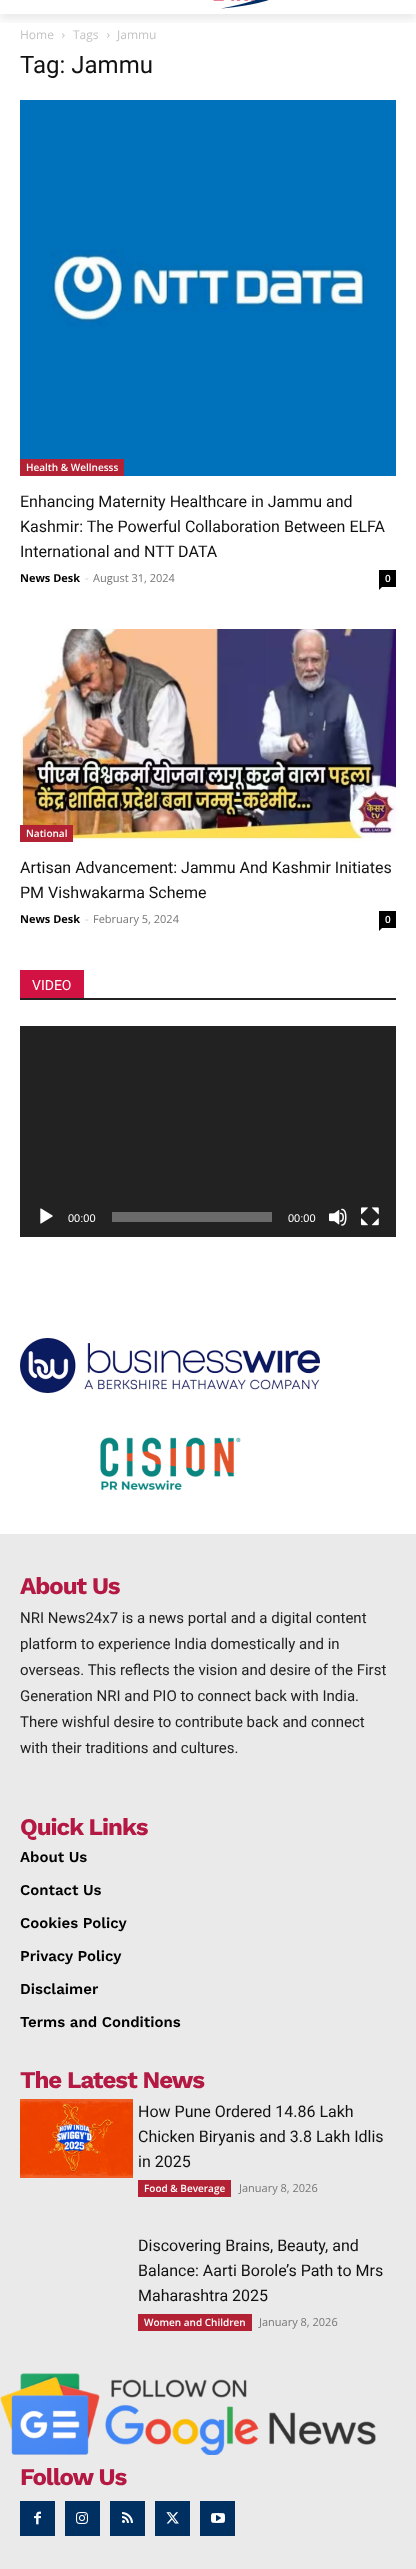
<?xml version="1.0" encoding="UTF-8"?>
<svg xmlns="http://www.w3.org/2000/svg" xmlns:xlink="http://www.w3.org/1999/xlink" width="416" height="2569">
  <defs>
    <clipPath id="clip1"><rect x="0" y="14" width="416" height="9" /></clipPath>
  </defs>
  <rect width="100%" height="100%" fill="#ffffff" />
  <image x="213" y="0" width="56" height="9" xlink:href="image1.png" />
  <g clip-path="url(#clip1)">
    <rect y="-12" width="416" height="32" fill="#000000" fill-opacity="0.08" filter="blur(4px)" />
  </g>
  <image x="62" y="33" width="3" height="5" xlink:href="image2.png" />
  <image x="107" y="33" width="3" height="5" xlink:href="image2.png" />
  <image x="20" y="100" width="376" height="376" xlink:href="image3.png" />
  <rect x="20" y="459" width="104" height="17" fill="#b22234" />
  <rect x="379" y="570" width="17" height="17" fill="#000000" />
  <path d="M 379 587 h 3 l -3 3 z" fill="#000000" />
  <image x="20" y="629" width="376" height="213" xlink:href="image4.png" />
  <rect x="20" y="825" width="53" height="17" fill="#b22234" />
  <rect x="379" y="911" width="17" height="17" fill="#000000" />
  <path d="M 379 928 h 3 l -3 3 z" fill="#000000" />
  <rect x="20" y="998" width="376" height="2" fill="#222222" />
  <rect x="20" y="970" width="64" height="28" fill="#d21242" />
  <rect x="20" y="1026" width="376" height="211" fill="#222222" />
  <image x="40" y="1208" width="13" height="16" xlink:href="image5.png" />
  <rect x="112" y="1212" width="160" height="10" fill="#6b6b6b" />
  <image x="329" y="1208" width="18" height="18" xlink:href="image6.png" />
  <image x="361" y="1207" width="18" height="19" xlink:href="image7.png" />
  <image x="20" y="1338" width="300" height="55" xlink:href="image8.png" />
  <image x="100" y="1437" width="141" height="53" xlink:href="image9.png" />
  <rect y="1534" width="416" height="1035" fill="#eaeaea" />
  <image x="20" y="2099" width="113" height="79" xlink:href="image10.png" />
  <rect x="138" y="2180" width="93" height="17" fill="#b22234" />
  <rect x="138" y="2314" width="114" height="17" fill="#b22234" />
  <image x="0" y="2373" width="376" height="82" xlink:href="image11.png" />
  <rect x="20" y="2501" width="35" height="35" fill="#002f62" />
  <image x="34" y="2511" width="7" height="14" xlink:href="image12.png" />
  <rect x="65" y="2501" width="35" height="35" fill="#002f62" />
  <image x="76" y="2512" width="12" height="12" xlink:href="image13.png" />
  <rect x="110" y="2501" width="35" height="35" fill="#002f62" />
  <image x="122" y="2512" width="11" height="11" xlink:href="image14.png" />
  <rect x="155" y="2501" width="35" height="35" fill="#002f62" />
  <image x="166" y="2512" width="13" height="12" xlink:href="image15.png" />
  <rect x="200" y="2501" width="35" height="35" fill="#002f62" />
  <image x="211" y="2513" width="14" height="10" xlink:href="image16.png" />
  <text x="20" y="39" style="font-family: Open Sans; font-size: 12px; fill: #c3c3c3">Home</text>
  <text x="73" y="39" style="font-family: Open Sans; font-size: 12px; fill: #c3c3c3">Tags</text>
  <text x="117" y="39" style="font-family: Open Sans; font-size: 12px; fill: #c3c3c3">Jammu</text>
  <text x="20" y="73" style="font-family: Roboto; font-size: 24px; fill: #111111">Tag: Jammu</text>
  <text x="26" y="471" style="font-family: Open Sans; font-size: 10px; font-weight: 600; fill: #ffffff">Health &amp; Wellnesss</text>
  <text x="20" y="507" style="font-family: Roboto; font-size: 16px; fill: #111111">Enhancing Maternity Healthcare in Jammu and</text>
  <text x="20" y="532" style="font-family: Roboto; font-size: 16px; fill: #111111">Kashmir: The Powerful Collaboration Between ELFA</text>
  <text x="20" y="557" style="font-family: Roboto; font-size: 16px; fill: #111111">International and NTT DATA</text>
  <text x="20" y="582" style="font-family: Open Sans; font-size: 11px; font-weight: bold; fill: #000000">News Desk</text>
  <text x="85" y="582" style="font-family: Open Sans; font-size: 11px; fill: #cccccc">-</text>
  <text x="93" y="582" style="font-family: Open Sans; font-size: 11px; fill: #767676">August 31, 2024</text>
  <text x="385" y="582" style="font-family: Open Sans; font-size: 10px; font-weight: 600; fill: #ffffff">0</text>
  <text x="26" y="837" style="font-family: Open Sans; font-size: 10px; font-weight: 600; fill: #ffffff">National</text>
  <text x="20" y="873" style="font-family: Roboto; font-size: 16px; fill: #111111">Artisan Advancement: Jammu And Kashmir Initiates</text>
  <text x="20" y="898" style="font-family: Roboto; font-size: 16px; fill: #111111">PM Vishwakarma Scheme</text>
  <text x="20" y="923" style="font-family: Open Sans; font-size: 11px; font-weight: bold; fill: #000000">News Desk</text>
  <text x="85" y="923" style="font-family: Open Sans; font-size: 11px; fill: #cccccc">-</text>
  <text x="93" y="923" style="font-family: Open Sans; font-size: 11px; fill: #767676">February 5, 2024</text>
  <text x="385" y="923" style="font-family: Open Sans; font-size: 10px; font-weight: 600; fill: #ffffff">0</text>
  <text x="32" y="990" style="font-family: Roboto; font-size: 14px; fill: #ffffff">VIDEO</text>
  <text x="68" y="1222" style="font-family: Liberation Sans; font-size: 11px; fill: #ffffff">00:00</text>
  <text x="288" y="1222" style="font-family: Liberation Sans; font-size: 11px; fill: #ffffff">00:00</text>
  <text x="20" y="1594" style="font-family: Work Sans; font-size: 24px; font-weight: bold; letter-spacing: -1px; fill: #b31942">About Us</text>
  <text x="20" y="1623" style="font-family: Roboto; font-size: 15px; fill: #222222">NRI News24x7 is a news portal and a digital content</text>
  <text x="20" y="1649" style="font-family: Roboto; font-size: 15px; fill: #222222">platform to experience India domestically and in</text>
  <text x="20" y="1675" style="font-family: Roboto; font-size: 15px; fill: #222222">overseas. This reflects the vision and desire of the First</text>
  <text x="20" y="1701" style="font-family: Roboto; font-size: 15px; fill: #222222">Generation NRI and PIO to connect back with India.</text>
  <text x="20" y="1727" style="font-family: Roboto; font-size: 15px; fill: #222222">There wishful desire to contribute back and connect</text>
  <text x="20" y="1753" style="font-family: Roboto; font-size: 15px; fill: #222222">with their traditions and cultures.</text>
  <text x="20" y="1835" style="font-family: Work Sans; font-size: 24px; font-weight: bold; letter-spacing: -1px; fill: #b31942">Quick Links</text>
  <text x="20" y="1862" style="font-family: Work Sans; font-size: 15px; font-weight: 600; fill: #000000">About Us</text>
  <text x="20" y="1895" style="font-family: Work Sans; font-size: 15px; font-weight: 600; fill: #000000">Contact Us</text>
  <text x="20" y="1928" style="font-family: Work Sans; font-size: 15px; font-weight: 600; fill: #000000">Cookies Policy</text>
  <text x="20" y="1961" style="font-family: Work Sans; font-size: 15px; font-weight: 600; fill: #000000">Privacy Policy</text>
  <text x="20" y="1994" style="font-family: Work Sans; font-size: 15px; font-weight: 600; fill: #000000">Disclaimer</text>
  <text x="20" y="2027" style="font-family: Work Sans; font-size: 15px; font-weight: 600; fill: #000000">Terms and Conditions</text>
  <text x="20" y="2088" style="font-family: Work Sans; font-size: 24px; font-weight: bold; letter-spacing: -1px; fill: #b31942">The Latest News</text>
  <text x="138" y="2117" style="font-family: Roboto; font-size: 16px; fill: #111111">How Pune Ordered 14.86 Lakh</text>
  <text x="138" y="2142" style="font-family: Roboto; font-size: 16px; fill: #111111">Chicken Biryanis and 3.8 Lakh Idlis</text>
  <text x="138" y="2167" style="font-family: Roboto; font-size: 16px; fill: #111111">in 2025</text>
  <text x="144" y="2192" style="font-family: Open Sans; font-size: 10px; font-weight: 600; fill: #ffffff">Food &amp; Beverage</text>
  <text x="239" y="2192" style="font-family: Open Sans; font-size: 11px; fill: #767676">January 8, 2026</text>
  <text x="138" y="2251" style="font-family: Roboto; font-size: 16px; fill: #111111">Discovering Brains, Beauty, and</text>
  <text x="138" y="2276" style="font-family: Roboto; font-size: 16px; fill: #111111">Balance: Aarti Borole’s Path to Mrs</text>
  <text x="138" y="2301" style="font-family: Roboto; font-size: 16px; fill: #111111">Maharashtra 2025</text>
  <text x="144" y="2326" style="font-family: Open Sans; font-size: 10px; font-weight: 600; fill: #ffffff">Women and Children</text>
  <text x="259" y="2326" style="font-family: Open Sans; font-size: 11px; fill: #767676">January 8, 2026</text>
  <text x="20" y="2485" style="font-family: Work Sans; font-size: 24px; font-weight: bold; letter-spacing: -1px; fill: #b31942">Follow Us</text>
</svg>
